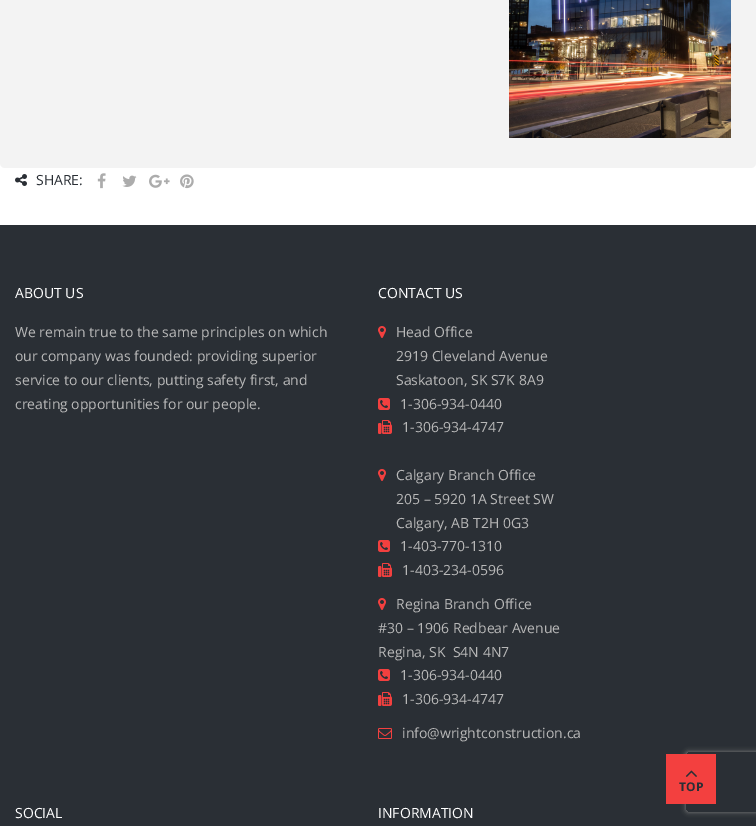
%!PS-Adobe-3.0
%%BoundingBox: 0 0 756 826
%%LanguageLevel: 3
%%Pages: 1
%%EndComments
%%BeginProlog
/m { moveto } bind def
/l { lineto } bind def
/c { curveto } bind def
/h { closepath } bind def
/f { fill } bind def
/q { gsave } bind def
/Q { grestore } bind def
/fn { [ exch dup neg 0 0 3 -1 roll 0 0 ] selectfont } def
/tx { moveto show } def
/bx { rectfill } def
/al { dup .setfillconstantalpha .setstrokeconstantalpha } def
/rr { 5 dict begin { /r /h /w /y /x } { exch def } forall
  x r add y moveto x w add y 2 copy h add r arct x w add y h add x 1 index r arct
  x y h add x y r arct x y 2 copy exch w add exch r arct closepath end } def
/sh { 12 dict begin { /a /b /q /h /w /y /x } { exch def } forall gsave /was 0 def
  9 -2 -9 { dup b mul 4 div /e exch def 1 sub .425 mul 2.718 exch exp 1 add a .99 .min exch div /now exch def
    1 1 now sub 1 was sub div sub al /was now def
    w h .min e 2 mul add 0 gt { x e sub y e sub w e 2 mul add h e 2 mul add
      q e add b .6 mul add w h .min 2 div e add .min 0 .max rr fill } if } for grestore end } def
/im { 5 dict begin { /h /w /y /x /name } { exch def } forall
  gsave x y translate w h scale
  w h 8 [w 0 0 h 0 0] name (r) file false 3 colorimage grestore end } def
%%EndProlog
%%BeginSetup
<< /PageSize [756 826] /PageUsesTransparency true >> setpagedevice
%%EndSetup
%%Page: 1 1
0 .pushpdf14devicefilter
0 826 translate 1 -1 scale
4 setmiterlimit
1 setgray
0 0 756 826 bx
0.953 setgray
0 -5 756 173 5 rr f
(image0.raw) 509 0 222 138 im
(image1.raw) 15 174 12 12 im
/OpenSans-Regular 14 fn
0.165 0.184 0.208 setrgbcolor
(SHARE:) 36 185 tx
(image2.raw) 97 173 9 16 im
(image3.raw) 122 175 15 12 im
(image4.raw) 149 174 21 14 im
(image5.raw) 180 174 14 15 im
0 225 756 601 bx
1 setgray
(ABOUT US) 15 298 tx
0.722 setgray
(We remain true to the same principles on which) 15 337 tx
(our company was founded: providing superior) 15 361 tx
(service to our clients, putting safety first, and) 15 385 tx
(creating opportunities for our people.) 15 409 tx
1 setgray
(CONTACT US) 378 298 tx
(image6.raw) 378 326 8 12 im
0.722 setgray
(Head Office) 396 337 tx
(2919 Cleveland Avenue) 396 361 tx
(Saskatoon, SK S7K 8A9) 396 385 tx
(image7.raw) 378 398 12 12 im
(1-306-934-0440) 400 409 tx
(image8.raw) 378 420 14 14 im
(1-306-934-4747) 402 432 tx
(image6.raw) 378 469 8 12 im
(Calgary Branch Office) 396 480 tx
(205 – 5920 1A Street SW) 396 504 tx
(Calgary, AB T2H 0G3) 396 528 tx
(image7.raw) 378 540 12 12 im
(1-403-770-1310) 400 551 tx
(image8.raw) 378 563 14 14 im
(1-403-234-0596) 402 575 tx
(image6.raw) 378 598 8 12 im
(Regina Branch Office) 396 609 tx
(#30 – 1906 Redbear Avenue) 378 633 tx
(Regina, SK  S4N 4N7) 378 657 tx
(image7.raw) 378 669 12 12 im
(1-306-934-0440) 400 680 tx
(image8.raw) 378 692 14 14 im
(1-306-934-4747) 402 704 tx
(image9.raw) 378 728 14 11 im
(info@wrightconstruction.ca) 402 738 tx
1 setgray
(SOCIAL) 15 818 tx
(INFORMATION) 378 818 tx
q
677 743 m 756 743 l 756 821 l 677 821 l h 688 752 m 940 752 l 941 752 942 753 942 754 c 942 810 l 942 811 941 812 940 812 c 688 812 l 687 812 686 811 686 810 c 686 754 l 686 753 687 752 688 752 c h eoclip newpath
0.502 setgray
686 752 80 60 2 2.5 1 sh
Q
0.953 0.251 0.247 setrgbcolor
666 754 50 50 bx
(image10.raw) 685 770 12 7 im
/OpenSans-Bold 12 fn
0.165 0.184 0.208 setrgbcolor
(TOP) 679 791 tx
.poppdf14devicefilter showpage
%%EOF
